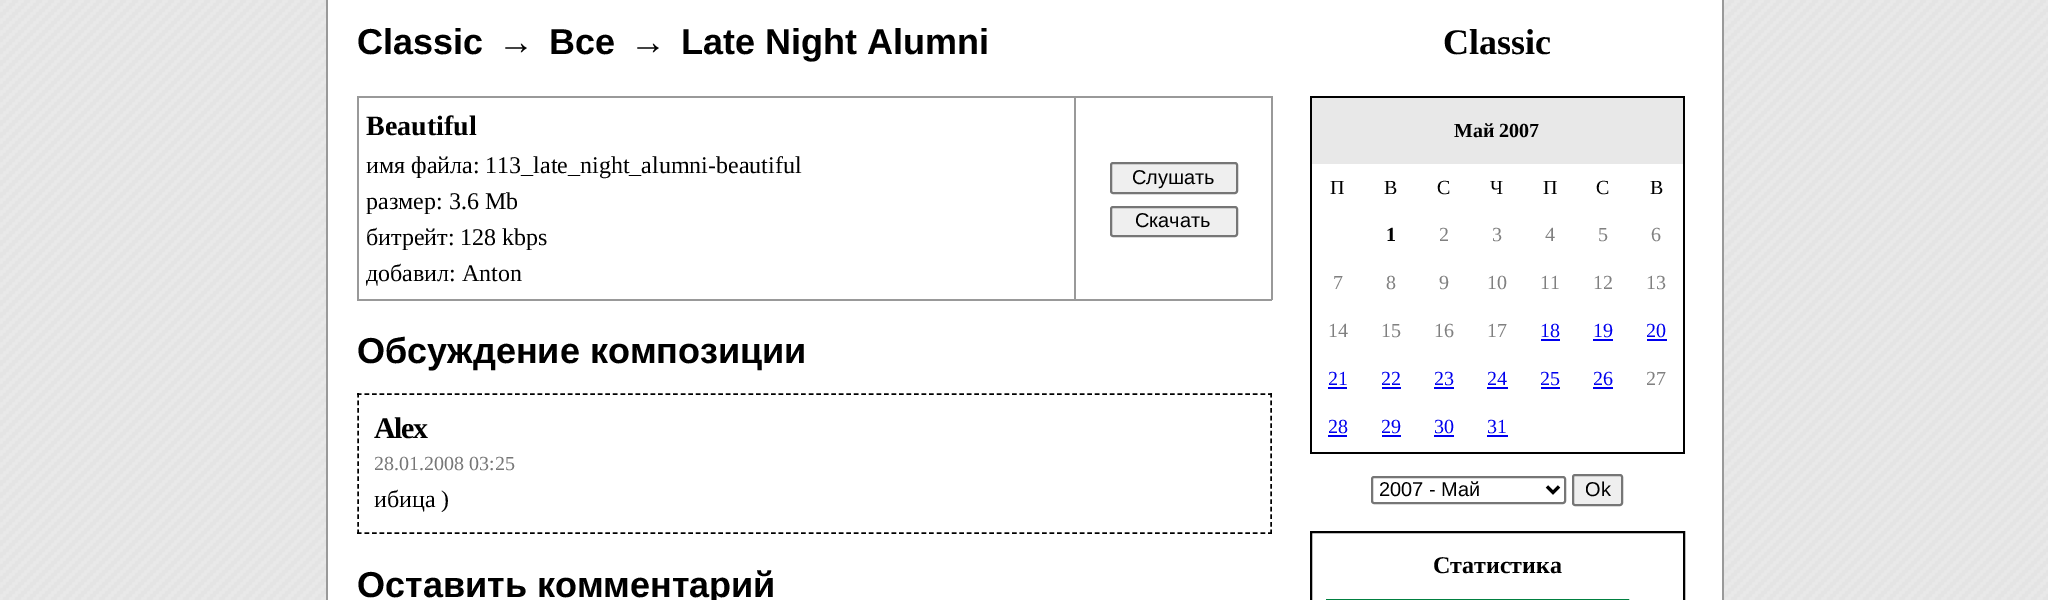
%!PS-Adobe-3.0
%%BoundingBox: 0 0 2048 600
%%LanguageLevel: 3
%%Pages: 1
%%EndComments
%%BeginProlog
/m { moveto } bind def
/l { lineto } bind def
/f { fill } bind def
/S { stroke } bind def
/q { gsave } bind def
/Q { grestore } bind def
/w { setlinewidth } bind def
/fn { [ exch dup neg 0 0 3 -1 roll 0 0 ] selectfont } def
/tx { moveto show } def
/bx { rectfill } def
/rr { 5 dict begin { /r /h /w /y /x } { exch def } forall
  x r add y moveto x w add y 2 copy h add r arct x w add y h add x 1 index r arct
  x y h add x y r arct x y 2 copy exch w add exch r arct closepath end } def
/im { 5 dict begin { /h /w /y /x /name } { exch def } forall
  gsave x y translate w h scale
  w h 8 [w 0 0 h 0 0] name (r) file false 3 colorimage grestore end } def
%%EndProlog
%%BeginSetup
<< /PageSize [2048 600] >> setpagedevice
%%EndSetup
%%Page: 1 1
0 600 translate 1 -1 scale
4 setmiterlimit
1 setgray
0 0 2048 600 bx
(image0.raw) 0 0 2048 600 im
328 0 1394 600 bx
0.6 setgray
1722 0 2 600 bx
326 0 2 600 bx
/LiberationSans-Bold 36 fn
0 setgray
(Classic) 357 54 tx
/LiberationSans-Regular 36 fn
(→) 498 54 tx
/LiberationSans-Bold 36 fn
(Все) 549 54 tx
/LiberationSans-Regular 36 fn
(→) 630 54 tx
/LiberationSans-Bold 36 fn
(Late Night Alumni) 681 54 tx
0.6 setgray
1074 96 198 2 bx
1271 96 2 204 bx
1074 299 198 2 bx
1074 96 2 204 bx
357 96 719 2 bx
357 299 719 2 bx
357 96 2 204 bx
/LiberationSerif-Bold 28 fn
0 setgray
(Beautiful) 366 135 tx
/LiberationSerif-Regular 24 fn
(имя файла: 113_late_night_alumni-beautiful) 366 173 tx
(размер: 3.6 Mb) 366 209 tx
(битрейт: 128 kbps) 366 245 tx
(добавил: Anton) 366 281 tx
0.937 setgray
1111 163 126 30 2 rr q f Q
0.463 setgray
2 w
S
/LiberationSans-Regular 20 fn
0 setgray
(Слушать) 1132 184 tx
0.937 setgray
1111 207 126 29 2 rr q f Q
0.463 setgray
S
0 setgray
(Скачать) 1135 227 tx
/LiberationSans-Bold 36 fn
(Обсуждение композиции) 357 363 tx
1.5 w
[4.5 3.03] 0 setdash
357 394 m 1272 394 l S
[4.5 3.09] 0 setdash
1271 393 m 1271 534 l S
[4.5 3.03] 0 setdash
357 533 m 1272 533 l S
[4.5 3.09] 0 setdash
358 393 m 358 534 l S
/LiberationSerif-Bold 30 fn
374 438 m -1.5 0 (Alex) ashow
/LiberationSerif-Regular 20 fn
0.467 setgray
(28.01.2008 03:25) 374 470 tx
/LiberationSerif-Regular 24 fn
0 setgray
(ибица \)) 374 507 tx
/LiberationSans-Bold 36 fn
(Оставить комментарий) 357 597 tx
/LiberationSerif-Bold 36 fn
(Classic) 1443 54 tx
1310 96 375 2 bx
1683 96 2 357 bx
1310 452 375 2 bx
1310 96 2 357 bx
0.91 setgray
1312 98 371 66 bx
/LiberationSerif-Bold 20 fn
0 setgray
(Май 2007) 1454 137 tx
/LiberationSerif-Regular 20 fn
(П) 1330 194 tx
(В) 1384 194 tx
(С) 1437 194 tx
(Ч) 1490 194 tx
(П) 1543 194 tx
(С) 1596 194 tx
(В) 1650 194 tx
/LiberationSerif-Bold 20 fn
(1) 1386 241 tx
/LiberationSerif-Regular 20 fn
0.502 setgray
(2) 1439 241 tx
(3) 1492 241 tx
(4) 1545 241 tx
(5) 1598 241 tx
(6) 1651 241 tx
(7) 1333 289 tx
(8) 1386 289 tx
(9) 1439 289 tx
(10) 1487 289 tx
(11) 1540 289 tx
(12) 1593 289 tx
(13) 1646 289 tx
(14) 1328 337 tx
(15) 1381 337 tx
(16) 1434 337 tx
(17) 1487 337 tx
0 0 0.933 setrgbcolor
(18) 1540 337 tx
1541 339 19 2 bx
(19) 1593 337 tx
1593 339 20 2 bx
(20) 1646 337 tx
1647 339 20 2 bx
(21) 1328 385 tx
1328 387 19 2 bx
(22) 1381 385 tx
1382 387 19 2 bx
(23) 1434 385 tx
1434 387 20 2 bx
(24) 1487 385 tx
1487 387 21 2 bx
(25) 1540 385 tx
1541 387 19 2 bx
(26) 1593 385 tx
1593 387 20 2 bx
0.502 setgray
(27) 1646 385 tx
0 0 0.933 setrgbcolor
(28) 1328 433 tx
1328 435 19 2 bx
(29) 1381 433 tx
1382 435 19 2 bx
(30) 1434 433 tx
1434 435 20 2 bx
(31) 1487 433 tx
1487 435 21 2 bx
0.463 setgray
2 w
[] 0 setdash
1372 477 193 26 2 rr S
0 setgray
3 w
1547 486.5 m 1553 492.5 l 1559 486.5 l S
/LiberationSans-Regular 20 fn
(2007 - Май) 1379 496 tx
0.937 setgray
1573 475 49 30 2 rr q f Q
0.463 setgray
2 w
S
0 setgray
(Ok) 1585 496 tx
1311 532 373 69 rectstroke
/LiberationSerif-Bold 24 fn
(Статистика) 1433 573 tx
0 0.502 0.251 setrgbcolor
1327 600 301 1 rectstroke
showpage
%%EOF
